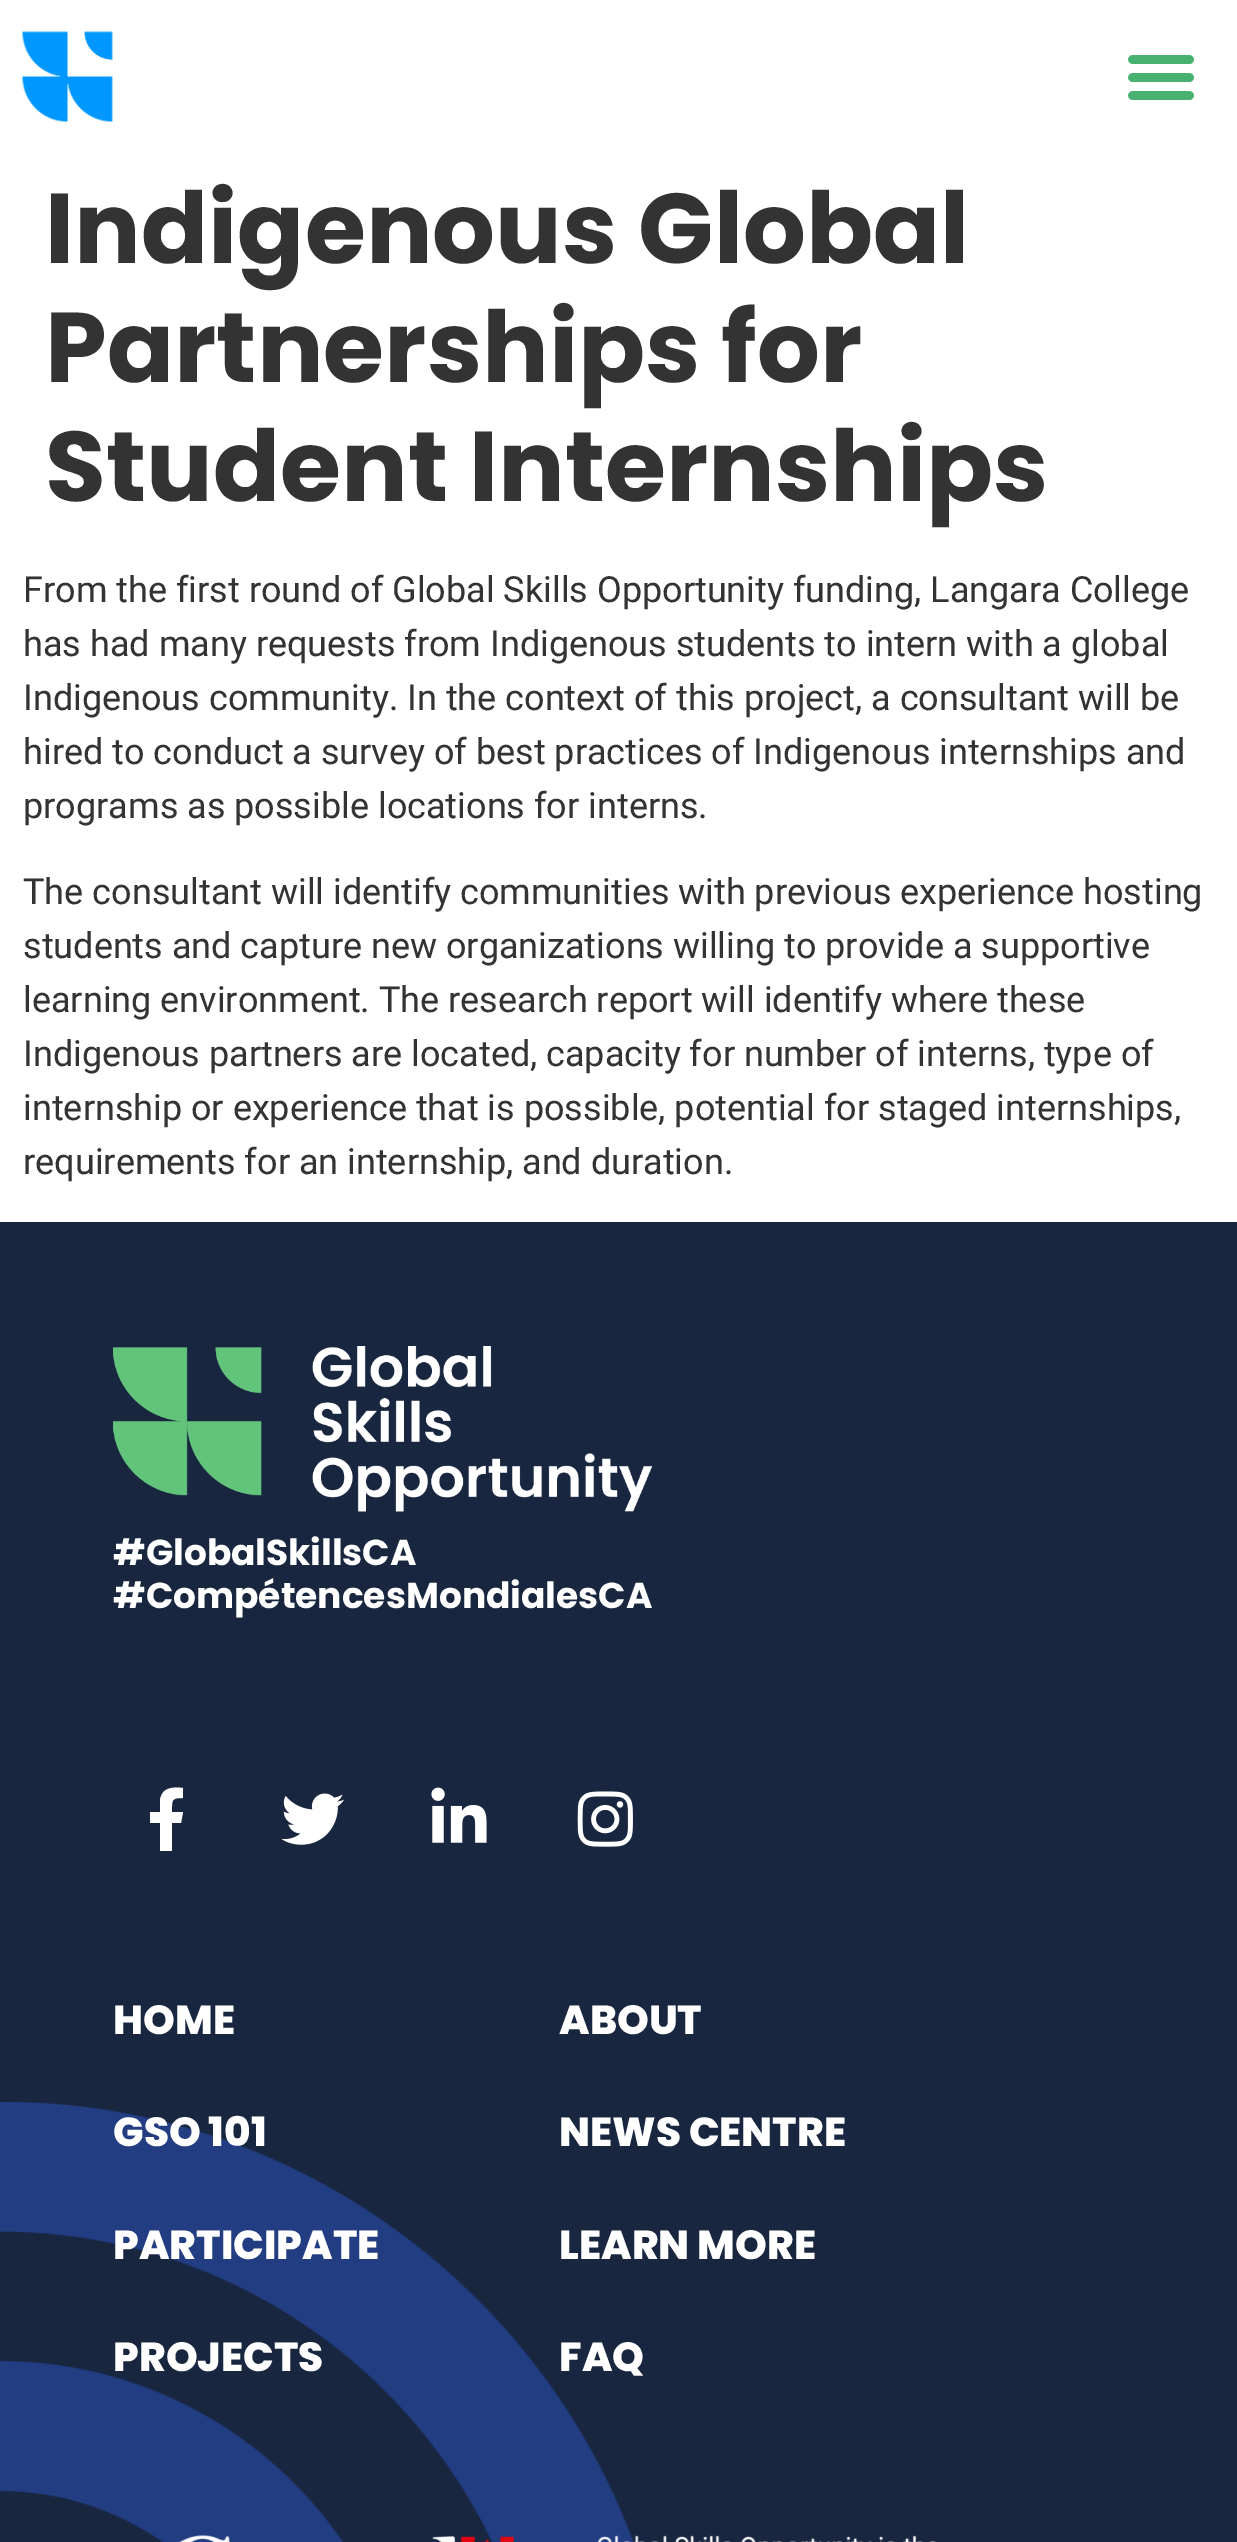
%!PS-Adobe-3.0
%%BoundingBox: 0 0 1237 2542
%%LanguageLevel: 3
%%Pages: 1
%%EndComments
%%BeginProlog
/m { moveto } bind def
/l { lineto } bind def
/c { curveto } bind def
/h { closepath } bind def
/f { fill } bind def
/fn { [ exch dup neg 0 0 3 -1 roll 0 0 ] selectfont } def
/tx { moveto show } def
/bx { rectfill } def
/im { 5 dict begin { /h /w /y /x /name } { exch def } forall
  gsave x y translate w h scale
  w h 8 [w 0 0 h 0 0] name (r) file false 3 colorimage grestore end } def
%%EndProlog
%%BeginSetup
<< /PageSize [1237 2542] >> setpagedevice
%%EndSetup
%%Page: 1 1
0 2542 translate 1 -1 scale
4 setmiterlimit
1 setgray
0 0 1237 2542 bx
(image0.raw) 22 31 91 91 im
(image1.raw) 1128 55 66 45 im
/Poppins-Bold 99 fn
0.2 setgray
(Indigenous Global) 45 263 tx
(Partnerships for) 45 382 tx
(Student Internships) 45 501 tx
/Roboto-Regular 36 fn
(From the first round of Global Skills Opportunity funding, Langara College) 23 602 tx
(has had many requests from Indigenous students to intern with a global) 23 656 tx
(Indigenous community. In the context of this project, a consultant will be) 23 710 tx
(hired to conduct a survey of best practices of Indigenous internships and) 23 764 tx
(programs as possible locations for interns.) 23 818 tx
(The consultant will identify communities with previous experience hosting) 23 904 tx
(students and capture new organizations willing to provide a supportive) 23 958 tx
(learning environment. The research report will identify where these) 23 1012 tx
(Indigenous partners are located, capacity for number of interns, type of) 23 1066 tx
(internship or experience that is possible, potential for staged internships,) 23 1120 tx
(requirements for an internship, and duration.) 23 1174 tx
0.094 0.149 0.251 setrgbcolor
0 1222 1237 1320 bx
(image2.raw) 113 1346 540 166 im
/Poppins-Bold 36 fn
1 setgray
(#GlobalSkillsCA) 113 1565 tx
(#CompétencesMondialesCA) 113 1608 tx
181 1823 m 172 1823 l 172 1851 l 160 1851 l 160 1823 l 150 1823 l 150 1812 l 160 1812 l 160 1800 l 162 1787 173 1787 183 1788 c 183 1798 l 171 1798 172 1800 172 1812 c 183 1812 l h f
(image3.raw) 281 1793 64 52 im
(image4.raw) 431 1787 56 56 im
(image5.raw) 577 1791 56 56 im
/Poppins-ExtraBold 40.5 fn
(HOME) 113 2034 tx
(image7.raw) 0 2102 634 440 im
(GSO 101) 113 2146 tx
(PARTICIPATE) 113 2259 tx
(PROJECTS) 113 2371 tx
(ABOUT) 559 2034 tx
(NEWS CENTRE) 559 2146 tx
(LEARN MORE) 559 2259 tx
(FAQ) 559 2371 tx
(image6.raw) 179 2535 757 7 im
showpage
%%EOF
